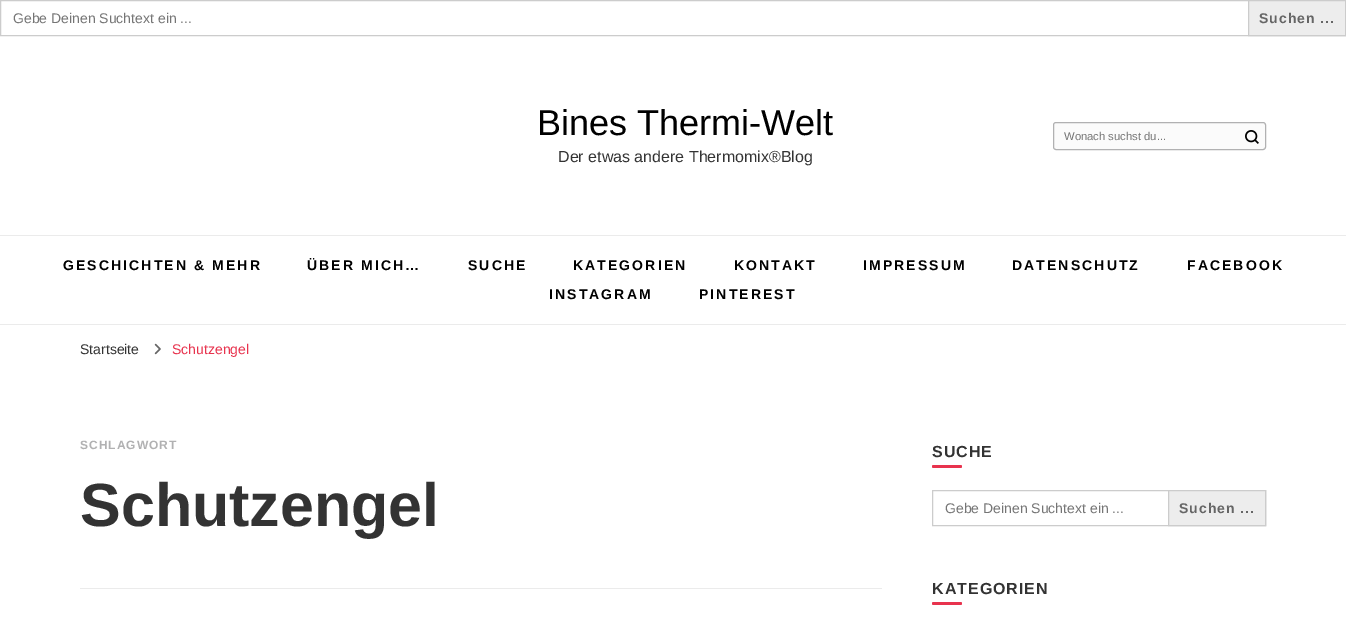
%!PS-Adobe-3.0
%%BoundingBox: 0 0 1346 619
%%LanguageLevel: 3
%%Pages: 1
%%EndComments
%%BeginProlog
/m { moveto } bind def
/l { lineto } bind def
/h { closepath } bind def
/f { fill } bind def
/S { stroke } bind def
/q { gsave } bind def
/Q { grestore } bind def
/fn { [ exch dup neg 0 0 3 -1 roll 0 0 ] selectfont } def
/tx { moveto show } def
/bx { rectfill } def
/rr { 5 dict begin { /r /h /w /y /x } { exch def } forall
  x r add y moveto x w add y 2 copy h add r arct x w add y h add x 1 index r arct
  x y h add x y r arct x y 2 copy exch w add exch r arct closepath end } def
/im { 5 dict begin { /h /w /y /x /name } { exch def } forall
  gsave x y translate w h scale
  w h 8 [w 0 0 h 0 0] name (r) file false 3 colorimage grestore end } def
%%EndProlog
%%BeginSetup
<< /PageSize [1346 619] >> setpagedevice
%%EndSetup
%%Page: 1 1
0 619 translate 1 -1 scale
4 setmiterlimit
1 setgray
0 0 1346 619 bx
0.8 setgray
0.5 0.5 1345 35 rectstroke
/LiberationSans-Regular 14 fn
0.459 setgray
(Gebe Deinen Suchtext ein ...) 13 23 tx
0.929 setgray
1248.5 0.5 m 1345.5 0.5 l 1345.5 35.5 l 1248.5 35.5 l h q f Q
0.8 setgray
S
/LiberationSans-Bold 14 fn
0.4 setgray
1259 23 m 1 0 (Suchen ...) ashow
0.922 setgray
0 324 1346 1 bx
/LiberationSans-Regular 36 fn
0 setgray
(Bines Thermi-Welt) 537 135 tx
/LiberationSans-Regular 16 fn
0.2 setgray
(Der etwas andere Thermomix®Blog) 558 162 tx
0.984 setgray
1053.5 122.5 212 27 2.5 rr q f Q
0.694 0.694 0.698 setrgbcolor
S
/LiberationSans-Regular 11.25 fn
0.459 setgray
(Wonach suchst du...) 1064 140 tx
(image0.raw) 1245 130 14 14 im
0.922 setgray
0 235 1346 1 bx
/LiberationSans-Bold 14 fn
0 setgray
63 270 m 2.1 0 (GESCHICHTEN & MEHR) ashow
307 270 m 2.1 0 (ÜBER MICH…) ashow
468 270 m 2.1 0 (SUCHE) ashow
573 270 m 2.1 0 (KATEGORIEN) ashow
734 270 m 2.1 0 (KONTAKT) ashow
863 270 m 2.1 0 (IMPRESSUM) ashow
1012 270 m 2.1 0 (DATENSCHUTZ) ashow
1187 270 m 2.1 0 (FACEBOOK) ashow
549 299 m 2.1 0 (INSTAGRAM) ashow
699 299 m 2.1 0 (PINTEREST) ashow
/LiberationSans-Regular 14 fn
0.2 setgray
(Startseite) 80 354 tx
(image1.raw) 154 343 7 12 im
0.91 0.2 0.306 setrgbcolor
(Schutzengel) 172 354 tx
0.922 setgray
80 588 802 1 bx
/LiberationSans-Bold 12 fn
0.694 0.694 0.698 setrgbcolor
80 449 m 1 0 (SCHLAGWORT) ashow
/LiberationSans-Bold 61 fn
0.2 setgray
(Schutzengel) 80 526 tx
/LiberationSans-Bold 16 fn
932 457 m 1 0 (SUCHE) ashow
0.91 0.2 0.306 setrgbcolor
932 465 30 3 1.5 rr f
0.8 setgray
932.5 490.5 333 35 rectstroke
/LiberationSans-Regular 14 fn
0.459 setgray
(Gebe Deinen Suchtext ein ...) 945 513 tx
0.929 setgray
1168.5 490.5 m 1265.5 490.5 l 1265.5 525.5 l 1168.5 525.5 l h q f Q
0.8 setgray
S
/LiberationSans-Bold 14 fn
0.4 setgray
1179 513 m 1 0 (Suchen ...) ashow
/LiberationSans-Bold 16 fn
0.2 setgray
932 594 m 1 0 (KATEGORIEN) ashow
0.91 0.2 0.306 setrgbcolor
932 602 30 3 1.5 rr f
showpage
%%EOF
